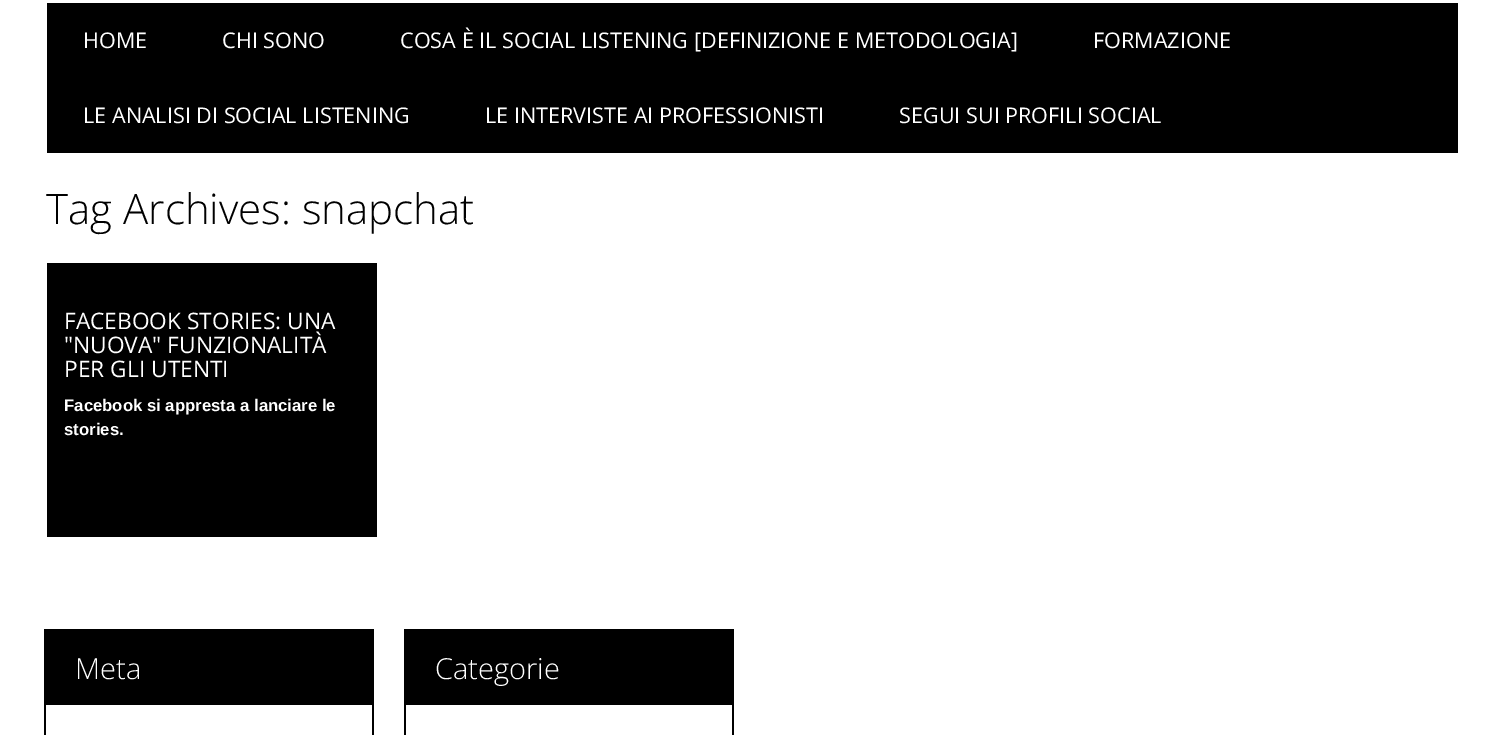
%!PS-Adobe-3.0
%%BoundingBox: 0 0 1504 735
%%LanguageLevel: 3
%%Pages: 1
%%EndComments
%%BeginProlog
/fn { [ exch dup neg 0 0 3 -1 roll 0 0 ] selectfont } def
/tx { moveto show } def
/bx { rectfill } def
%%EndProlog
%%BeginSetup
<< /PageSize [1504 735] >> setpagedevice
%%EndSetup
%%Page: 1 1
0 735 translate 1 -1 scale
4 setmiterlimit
1 setgray
0 0 1504 735 bx
0 setgray
47 3 1411 150 bx
/OpenSans-Regular 21.6 fn
1 setgray
(HOME) 83 48 tx
(CHI SONO) 222 48 tx
(COSA È IL SOCIAL LISTENING [DEFINIZIONE E METODOLOGIA]) 400 48 tx
(FORMAZIONE) 1093 48 tx
(LE ANALISI DI SOCIAL LISTENING) 83 123 tx
(LE INTERVISTE AI PROFESSIONISTI) 485 123 tx
(SEGUI SUI PROFILI SOCIAL) 899 123 tx
/OpenSans-Light 42 fn
0 setgray
(Tag Archives: snapchat) 46 224 tx
47 263 330 274 bx
/OpenSans-Regular 22.75 fn
1 setgray
(FACEBOOK STORIES: UNA) 64 329 tx
("NUOVA" FUNZIONALITÀ) 64 353 tx
(PER GLI UTENTI) 64 377 tx
/LiberationSans-Bold 16.75 fn
(Facebook si appresta a lanciare le) 64 411 tx
(stories.) 64 435 tx
0 setgray
44 629 330 4 bx
372 629 2 106 bx
44 629 2 106 bx
46 633 326 72 bx
/OpenSans-Light 29 fn
1 setgray
(Meta) 75 679 tx
0 setgray
404 629 330 4 bx
732 629 2 106 bx
404 629 2 106 bx
406 633 326 72 bx
1 setgray
(Categorie) 435 679 tx
showpage
%%EOF
